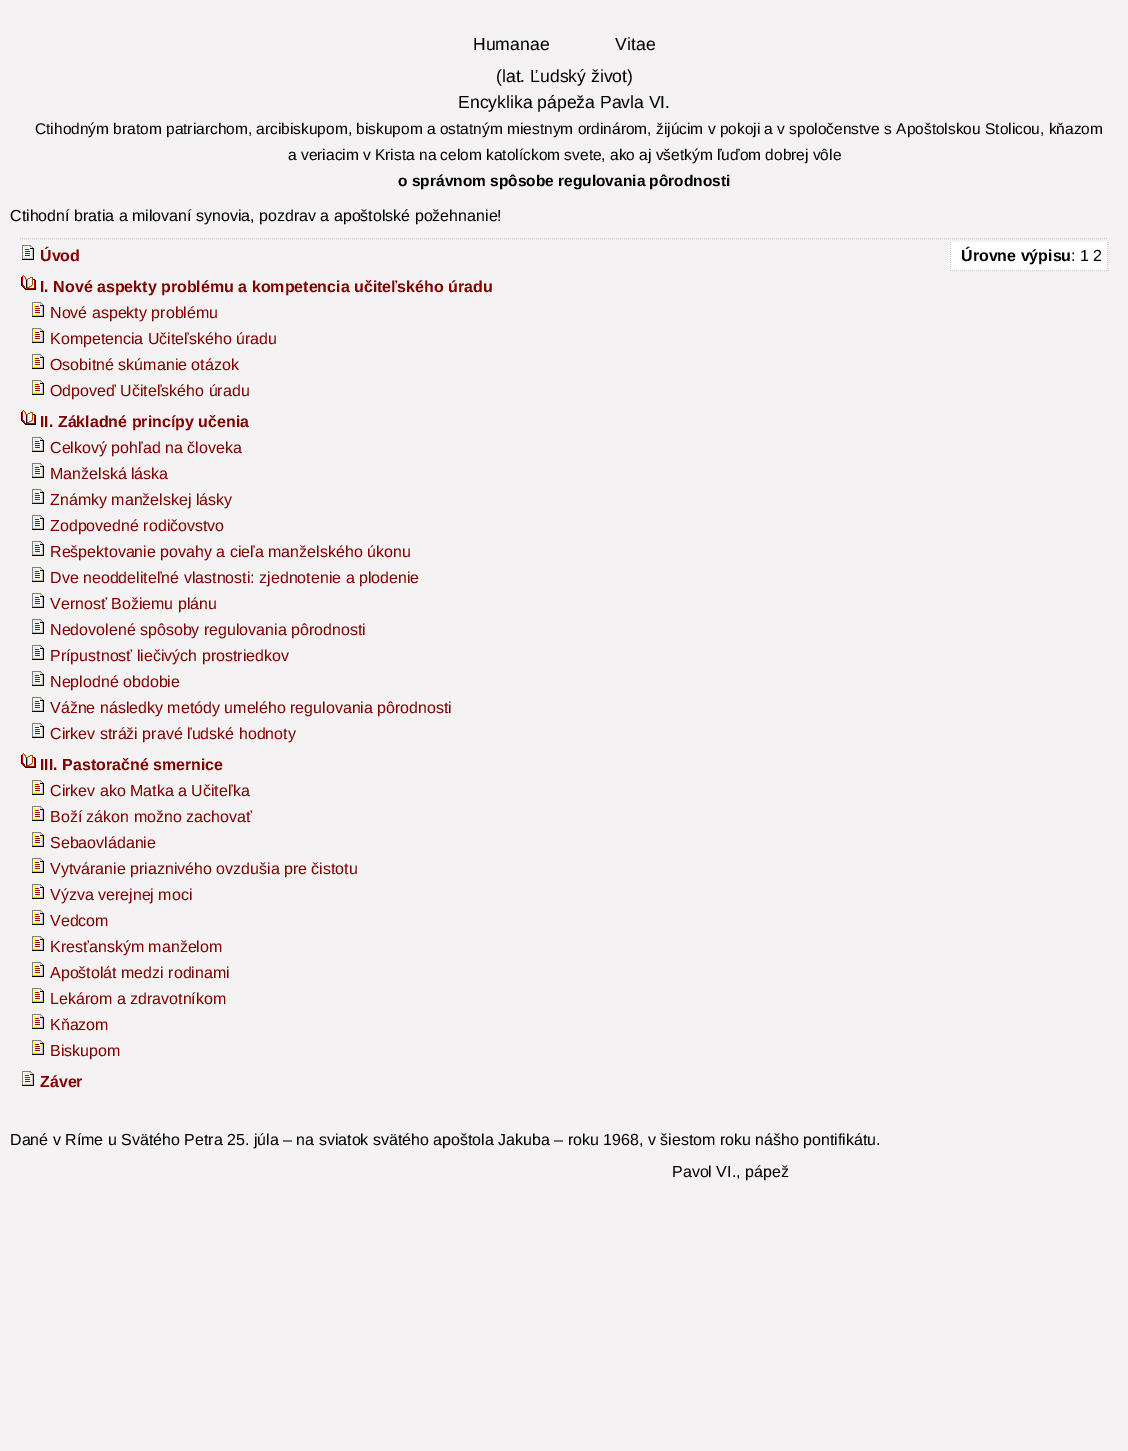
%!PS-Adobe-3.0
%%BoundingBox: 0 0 1128 1451
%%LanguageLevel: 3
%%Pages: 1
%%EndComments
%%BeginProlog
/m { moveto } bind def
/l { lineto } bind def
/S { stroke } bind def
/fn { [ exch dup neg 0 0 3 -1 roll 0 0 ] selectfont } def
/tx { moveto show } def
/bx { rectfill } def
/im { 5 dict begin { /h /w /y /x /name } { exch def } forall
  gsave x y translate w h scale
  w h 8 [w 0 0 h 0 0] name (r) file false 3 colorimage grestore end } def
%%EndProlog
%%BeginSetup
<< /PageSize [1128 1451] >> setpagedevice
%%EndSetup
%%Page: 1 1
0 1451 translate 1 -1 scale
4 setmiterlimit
0.957 0.949 0.953 setrgbcolor
0 0 1128 1451 bx
/LiberationSans-Regular 17.6 fn
0 setgray
473 50 m 61 0 32 (Humanae Vitae) widthshow
(\(lat. Ľudský život\)) 496 82 tx
(Encyklika pápeža Pavla VI.) 458 108 tx
/LiberationSans-Regular 15.5 fn
(Ctihodným bratom patriarchom, arcibiskupom, biskupom a ostatným miestnym ordinárom, žijúcim v pokoji a v spoločenstve s Apoštolskou Stolicou, kňazom) 35 134 tx
(a veriacim v Krista na celom katolíckom svete, ako aj všetkým ľuďom dobrej vôle) 288 160 tx
/LiberationSans-Bold 15.5 fn
(o správnom spôsobe regulovania pôrodnosti) 398 186 tx
/LiberationSans-Regular 16 fn
(Ctihodní bratia a milovaní synovia, pozdrav a apoštolské požehnanie!) 10 221 tx
0.8 setgray
[1 1] 0 setdash
20 238.5 m 1108 238.5 l S
(image0.raw) 22 245 12 15 im
/LiberationSans-Bold 16 fn
0.502 0 0 setrgbcolor
(Úvod) 40 261 tx
1 setgray
950 242 158 29 bx
0.8 setgray
1107.5 242 m 1107.5 271 l S
950 270.5 m 1108 270.5 l S
950.5 242 m 950.5 271 l S
0 setgray
(Úrovne výpisu) 961 261 tx
/LiberationSans-Regular 16 fn
(: 1 2) 1071 261 tx
(image1.raw) 21 275 15 15 im
/LiberationSans-Bold 16 fn
0.502 0 0 setrgbcolor
(I. Nové aspekty problému a kompetencia učiteľského úradu) 40 292 tx
(image0.raw) 32 302 12 15 im
/LiberationSans-Regular 16 fn
(Nové aspekty problému) 50 318 tx
(image0.raw) 32 328 12 15 im
(Kompetencia Učiteľského úradu) 50 344 tx
(image0.raw) 32 354 12 15 im
(Osobitné skúmanie otázok) 50 370 tx
(image0.raw) 32 380 12 15 im
(Odpoveď Učiteľského úradu) 50 396 tx
(image1.raw) 21 410 15 15 im
/LiberationSans-Bold 16 fn
(II. Základné princípy učenia) 40 427 tx
(image0.raw) 32 437 12 15 im
/LiberationSans-Regular 16 fn
(Celkový pohľad na človeka) 50 453 tx
(image0.raw) 32 463 12 15 im
(Manželská láska) 50 479 tx
(image0.raw) 32 489 12 15 im
(Známky manželskej lásky) 50 505 tx
(image0.raw) 32 515 12 15 im
(Zodpovedné rodičovstvo) 50 531 tx
(image0.raw) 32 541 12 15 im
(Rešpektovanie povahy a cieľa manželského úkonu) 50 557 tx
(image0.raw) 32 567 12 15 im
(Dve neoddeliteľné vlastnosti: zjednotenie a plodenie) 50 583 tx
(image0.raw) 32 593 12 15 im
(Vernosť Božiemu plánu) 50 609 tx
(image0.raw) 32 619 12 15 im
(Nedovolené spôsoby regulovania pôrodnosti) 50 635 tx
(image0.raw) 32 645 12 15 im
(Prípustnosť liečivých prostriedkov) 50 661 tx
(image0.raw) 32 671 12 15 im
(Neplodné obdobie) 50 687 tx
(image0.raw) 32 697 12 15 im
(Vážne následky metódy umelého regulovania pôrodnosti) 50 713 tx
(image0.raw) 32 723 12 15 im
(Cirkev stráži pravé ľudské hodnoty) 50 739 tx
(image1.raw) 21 753 15 15 im
/LiberationSans-Bold 16 fn
(III. Pastoračné smernice) 40 770 tx
(image0.raw) 32 780 12 15 im
/LiberationSans-Regular 16 fn
(Cirkev ako Matka a Učiteľka) 50 796 tx
(image0.raw) 32 806 12 15 im
(Boží zákon možno zachovať) 50 822 tx
(image0.raw) 32 832 12 15 im
(Sebaovládanie) 50 848 tx
(image0.raw) 32 858 12 15 im
(Vytváranie priaznivého ovzdušia pre čistotu) 50 874 tx
(image0.raw) 32 884 12 15 im
(Výzva verejnej moci) 50 900 tx
(image0.raw) 32 910 12 15 im
(Vedcom) 50 926 tx
(image0.raw) 32 936 12 15 im
(Kresťanským manželom) 50 952 tx
(image0.raw) 32 962 12 15 im
(Apoštolát medzi rodinami) 50 978 tx
(image0.raw) 32 988 12 15 im
(Lekárom a zdravotníkom) 50 1004 tx
(image0.raw) 32 1014 12 15 im
(Kňazom) 50 1030 tx
(image0.raw) 32 1040 12 15 im
(Biskupom) 50 1056 tx
(image0.raw) 22 1071 12 15 im
/LiberationSans-Bold 16 fn
(Záver) 40 1087 tx
/LiberationSans-Regular 16 fn
0 setgray
(Dané v Ríme u Svätého Petra 25. júla – na sviatok svätého apoštola Jakuba – roku 1968, v šiestom roku nášho pontifikátu.) 10 1145 tx
(Pavol VI., pápež) 672 1177 tx
showpage
%%EOF
